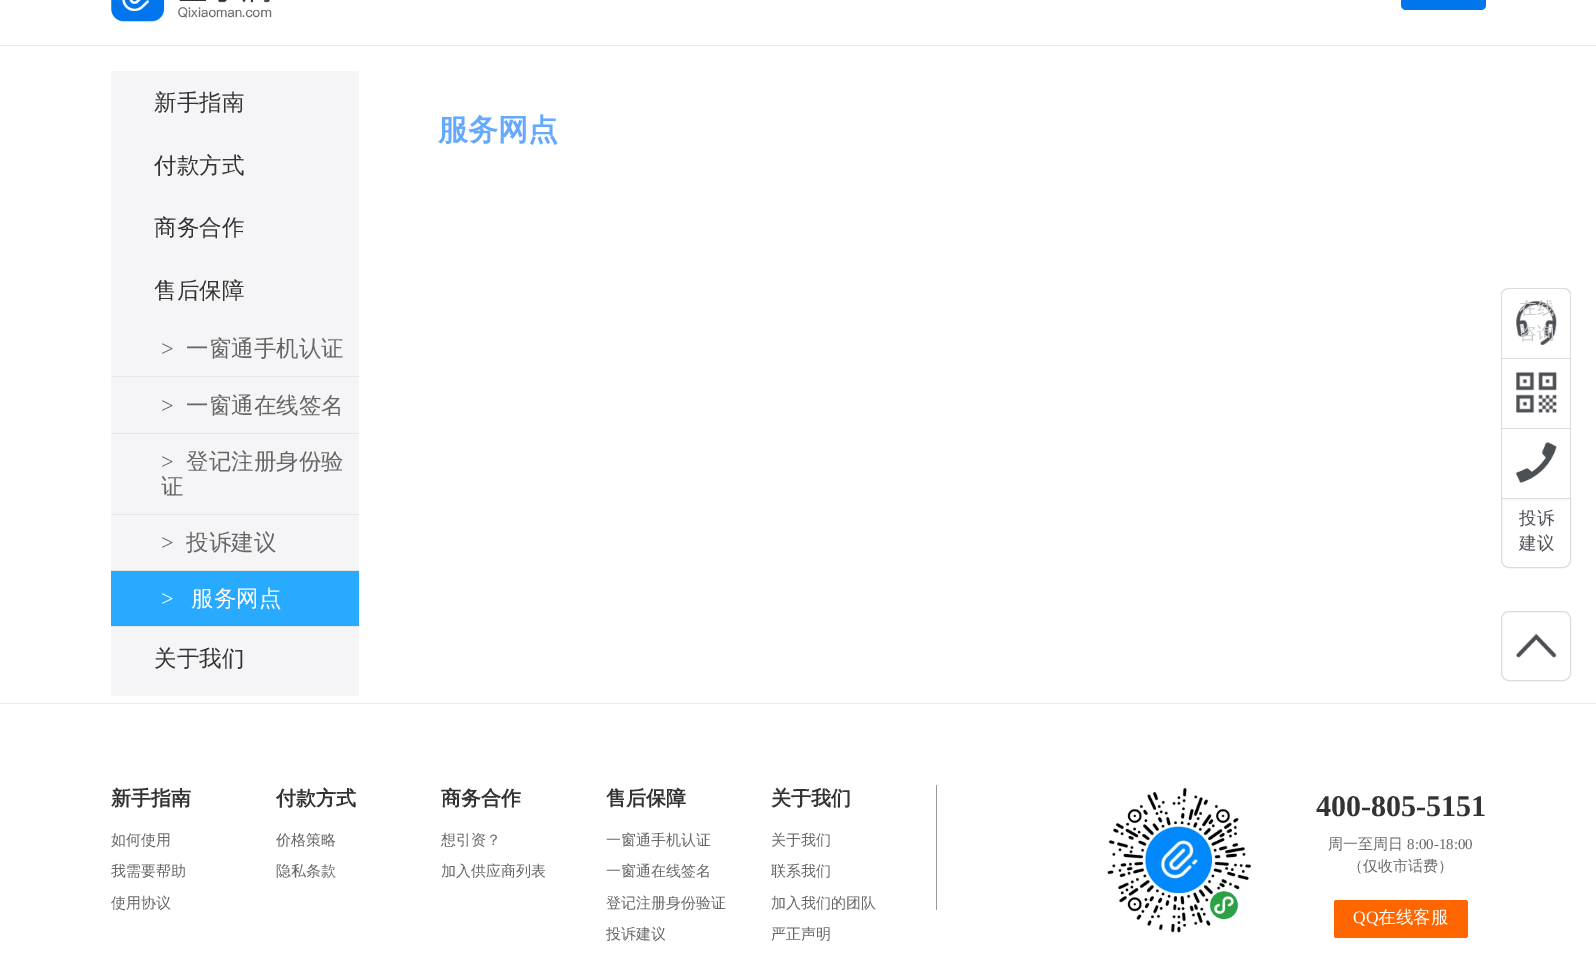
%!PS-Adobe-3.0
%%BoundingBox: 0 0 1596 956
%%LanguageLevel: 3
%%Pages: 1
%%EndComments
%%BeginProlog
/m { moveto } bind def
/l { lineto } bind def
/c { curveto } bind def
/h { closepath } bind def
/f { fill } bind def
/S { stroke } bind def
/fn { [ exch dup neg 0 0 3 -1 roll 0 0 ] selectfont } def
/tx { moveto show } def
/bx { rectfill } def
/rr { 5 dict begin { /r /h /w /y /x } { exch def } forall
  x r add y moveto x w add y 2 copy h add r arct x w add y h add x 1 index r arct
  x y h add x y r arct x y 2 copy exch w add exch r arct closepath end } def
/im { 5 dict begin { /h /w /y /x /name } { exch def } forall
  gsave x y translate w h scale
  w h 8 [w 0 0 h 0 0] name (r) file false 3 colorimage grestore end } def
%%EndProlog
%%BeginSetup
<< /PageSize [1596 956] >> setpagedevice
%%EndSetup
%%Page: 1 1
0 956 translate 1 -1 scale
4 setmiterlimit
1 setgray
0 0 1596 956 bx
0.918 setgray
0 45 1596 1 bx
(image0.raw) 111 0 161 22 im
0 0.459 0.925 setrgbcolor
1401 -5 85 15 5 rr f
0.961 0.961 0.969 setrgbcolor
111 71 248 625 bx
/WenQuanYiZenHei-Medium 22.5 fn
0.2 setgray
(新手指南) 154 110 tx
(付款方式) 154 173 tx
(商务合作) 154 235 tx
(售后保障) 154 298 tx
0.906 setgray
111 376 248 1 bx
/LiberationSerif-Regular 22.5 fn
0.4 setgray
(>) 161 356 tx
/WenQuanYiZenHei-Medium 22.5 fn
(一窗通手机认证) 186 356 tx
0.906 setgray
111 433 248 1 bx
/LiberationSerif-Regular 22.5 fn
0.4 setgray
(>) 161 413 tx
/WenQuanYiZenHei-Medium 22.5 fn
(一窗通在线签名) 186 413 tx
0.906 setgray
111 514 248 1 bx
/LiberationSerif-Regular 22.5 fn
0.4 setgray
(>) 161 469 tx
/WenQuanYiZenHei-Medium 22.5 fn
(登记注册身份验) 186 469 tx
(证) 161 494 tx
0.906 setgray
111 570 248 1 bx
/LiberationSerif-Regular 22.5 fn
0.4 setgray
(>) 161 550 tx
/WenQuanYiZenHei-Medium 22.5 fn
(投诉建议) 186 550 tx
0.906 setgray
111 626 248 1 bx
0.157 0.667 1 setrgbcolor
111 571 248 55 bx
/LiberationSerif-Regular 22.5 fn
1 setgray
(>) 161 606 tx
/WenQuanYiZenHei-Medium 22.5 fn
(服务网点) 191 606 tx
0.2 setgray
(关于我们) 154 666 tx
/WenQuanYiZenHei-Bold 30 fn
0.396 0.663 1 setrgbcolor
(服务网点) 438 140 tx
(image1.raw) 1516 301 41 44 im
0.863 setgray
1509 288 m 1564 288 l 1568 288 1571 291 1571 295 c 1571 358 l 1501 358 l 1501 295 l 1501 291 1505 288 1509 288 c h 1509 289 m 1564 289 l 1567 289 1570 292 1570 295 c 1570 358 l 1502 358 l 1502 295 l 1502 292 1505 289 1509 289 c h eofill
/WenQuanYiZenHei-Medium 17.5 fn
0.788 0.792 0.796 setrgbcolor
(在线) 1519 314 tx
(咨询) 1519 339 tx
(image2.raw) 1516 372 41 41 im
0.863 setgray
1501 358 70 1 bx
1570 358 1 70 bx
1501 358 1 70 bx
(image3.raw) 1516 442 41 41 im
1501 428 70 1 bx
1570 428 1 70 bx
1501 428 1 70 bx
1501.5 498.5 m 1570.5 498.5 l 1570.5 560 l 1570.5 564 1567 567.5 1563 567.5 c 1509 567.5 l 1505 567.5 1501.5 564 1501.5 560 c h S
0.298 0.31 0.329 setrgbcolor
(投诉) 1519 524 tx
(建议) 1519 549 tx
(image4.raw) 1516 633 41 25 im
0.863 setgray
1501.5 611.5 69 69 7.5 rr S
0.918 setgray
0 703 1596 1 bx
/WenQuanYiZenHei-Bold 20 fn
0.2 setgray
(新手指南) 111 805 tx
/WenQuanYiZenHei-Medium 15 fn
0.4 setgray
(如何使用) 111 845 tx
(我需要帮助) 111 876 tx
(使用协议) 111 908 tx
/WenQuanYiZenHei-Bold 20 fn
0.2 setgray
(付款方式) 276 805 tx
/WenQuanYiZenHei-Medium 15 fn
0.4 setgray
(价格策略) 276 845 tx
(隐私条款) 276 876 tx
/WenQuanYiZenHei-Bold 20 fn
0.2 setgray
(商务合作) 441 805 tx
/WenQuanYiZenHei-Medium 15 fn
0.4 setgray
(想引资？) 441 845 tx
(加入供应商列表) 441 876 tx
/WenQuanYiZenHei-Bold 20 fn
0.2 setgray
(售后保障) 606 805 tx
/WenQuanYiZenHei-Medium 15 fn
0.4 setgray
(一窗通手机认证) 606 845 tx
(一窗通在线签名) 606 876 tx
(登记注册身份验证) 606 908 tx
(投诉建议) 606 939 tx
/WenQuanYiZenHei-Bold 20 fn
0.2 setgray
(关于我们) 771 805 tx
/WenQuanYiZenHei-Medium 15 fn
0.4 setgray
(关于我们) 771 845 tx
(联系我们) 771 876 tx
(加入我们的团队) 771 908 tx
(严正声明) 771 939 tx
0.6 setgray
936 785 1 125 bx
(image5.raw) 1107 787 144 146 im
/LiberationSerif-Bold 30 fn
0.2 setgray
(400-805-5151) 1316 816 tx
/WenQuanYiZenHei-Medium 15 fn
0.4 setgray
(周一至周日) 1328 849 tx
/LiberationSerif-Regular 15 fn
(8:00-18:00) 1407 849 tx
/WenQuanYiZenHei-Medium 15 fn
(（仅收市话费）) 1348 871 tx
1 0.4 0 setrgbcolor
1334 900 134 38 2.5 rr f
/LiberationSerif-Regular 17.5 fn
1 setgray
(QQ) 1353 923 tx
/WenQuanYiZenHei-Medium 17.5 fn
(在线客服) 1378 923 tx
showpage
%%EOF
